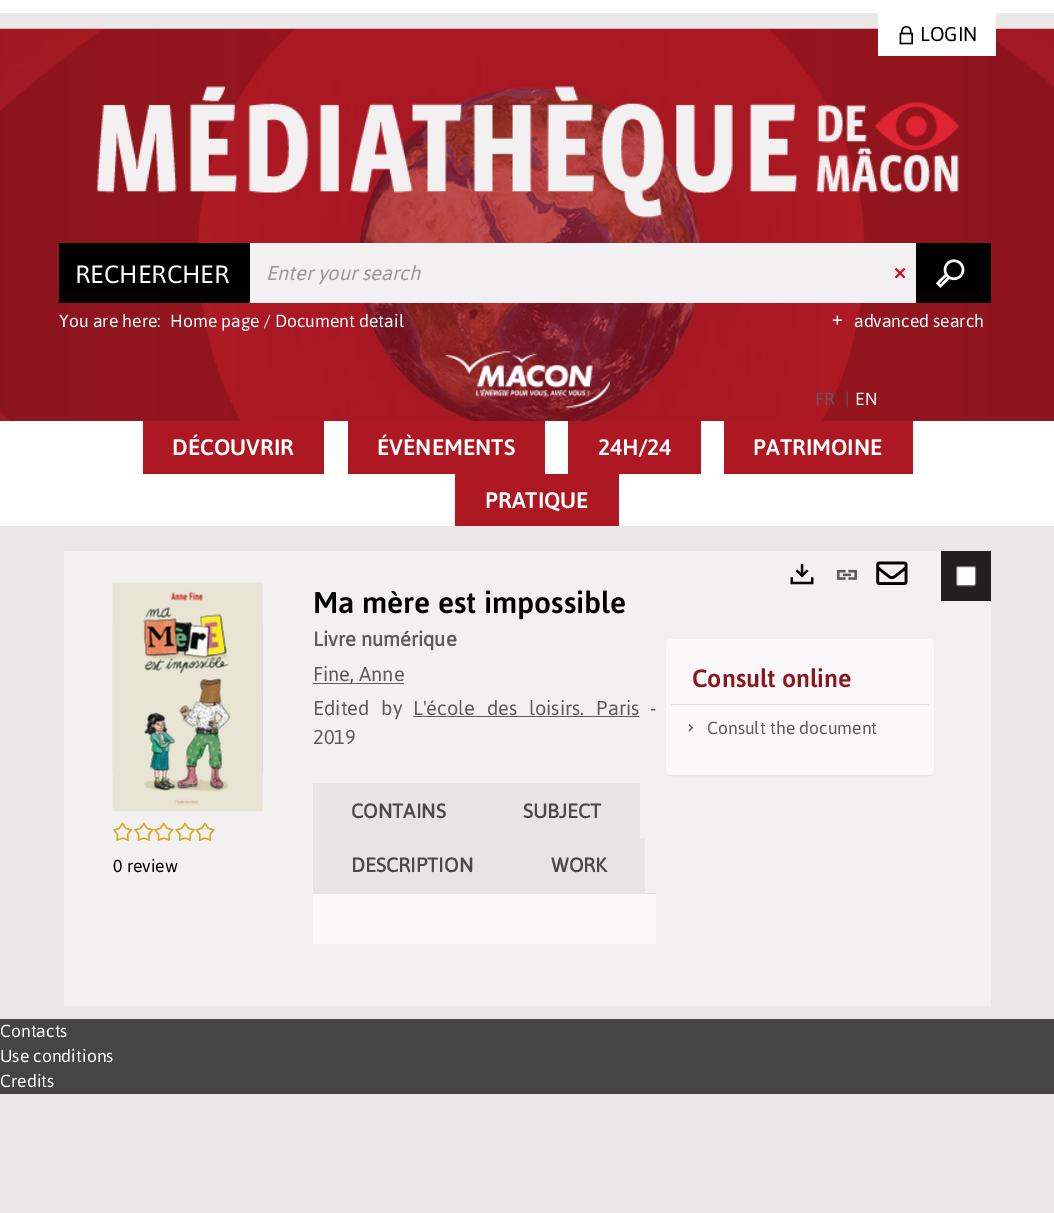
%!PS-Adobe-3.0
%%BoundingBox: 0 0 1054 1213
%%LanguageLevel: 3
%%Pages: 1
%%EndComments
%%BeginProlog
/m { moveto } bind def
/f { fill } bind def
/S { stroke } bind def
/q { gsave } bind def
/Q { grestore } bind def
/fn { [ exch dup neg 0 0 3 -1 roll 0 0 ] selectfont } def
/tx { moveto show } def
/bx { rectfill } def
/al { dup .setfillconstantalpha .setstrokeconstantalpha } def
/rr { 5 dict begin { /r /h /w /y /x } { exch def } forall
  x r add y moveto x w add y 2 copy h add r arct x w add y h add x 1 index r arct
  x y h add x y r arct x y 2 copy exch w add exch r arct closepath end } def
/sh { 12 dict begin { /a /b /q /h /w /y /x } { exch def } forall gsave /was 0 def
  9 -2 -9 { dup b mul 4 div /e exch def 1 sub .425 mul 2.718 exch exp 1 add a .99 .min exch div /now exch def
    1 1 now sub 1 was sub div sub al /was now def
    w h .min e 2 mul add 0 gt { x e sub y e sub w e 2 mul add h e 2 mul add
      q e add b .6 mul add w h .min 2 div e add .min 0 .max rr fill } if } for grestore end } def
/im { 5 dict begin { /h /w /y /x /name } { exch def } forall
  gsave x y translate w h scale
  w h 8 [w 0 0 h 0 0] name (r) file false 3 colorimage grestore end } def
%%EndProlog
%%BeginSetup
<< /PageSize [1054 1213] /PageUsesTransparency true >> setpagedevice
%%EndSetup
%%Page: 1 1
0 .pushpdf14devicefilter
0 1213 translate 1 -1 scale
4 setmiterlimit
0.914 0.906 0.91 setrgbcolor
0 0 1054 1213 bx
(image0.raw) 0 28 1054 393 im
1 setgray
0 0 1054 13 bx
878 13 118 43 bx
(image1.raw) 899 25 14 20 im
/Asap-Regular 20 fn
0 setgray
(LOGIN) 920 41 tx
(image2.raw) 97 86 862 132 im
59 243 191 60 bx
/Asap-Regular 25 fn
1 setgray
(RECHERCHER) 75 283 tx
0.949 0.941 0.945 setrgbcolor
250 243 666 60 bx
/Asap-Italic 20 fn
0.6 setgray
(Enter your search) 266 280 tx
(image3.raw) 894 267 12 12 im
0 setgray
916 243 75 60 bx
(image4.raw) 935 259 30 29 im
(image5.raw) 832 315 10 10 im
/Asap-Regular 17.5 fn
1 setgray
(advanced search) 854 327 tx
(You are here:) 59 327 tx
(Home page / Document detail) 170 327 tx
(image6.raw) 446 351 164 57 im
0.373 0.357 0.357 setrgbcolor
(FR) 815 405 tx
(|) 845 405 tx
0.949 0.941 0.945 setrgbcolor
(EN) 855 405 tx
1 setgray
0 421 1054 105 bx
0.678 0.094 0.133 setrgbcolor
143 421 181 53 bx
/Asap-Medium 22.5 fn
1 setgray
(DÉCOUVRIR) 172 455 tx
0.678 0.094 0.133 setrgbcolor
348 421 197 53 bx
1 setgray
(ÉVÈNEMENTS) 377 455 tx
0.678 0.094 0.133 setrgbcolor
568 421 133 53 bx
1 setgray
(24H/24) 598 455 tx
0.678 0.094 0.133 setrgbcolor
724 421 189 53 bx
1 setgray
(PATRIMOINE) 753 455 tx
0.678 0.094 0.133 setrgbcolor
455 474 164 52 bx
1 setgray
(PRATIQUE) 485 508 tx
0.949 0.941 0.945 setrgbcolor
64 551 927 455 bx
(image7.raw) 112 582 151 230 im
(image8.raw) 112 582 151 230 im
(image9.raw) 113 822 20 20 im
(image10.raw) 133 822 21 20 im
(image11.raw) 153 822 21 20 im
(image12.raw) 175 822 20 20 im
(image12.raw) 195 822 20 20 im
/Asap-Regular 17.5 fn
0 setgray
(0 review) 113 872 tx
/Asap-Medium 30 fn
(Ma mère est impossible) 313 613 tx
/Asap-Bold 20 fn
0.373 0.357 0.357 setrgbcolor
(Livre numérique) 313 646 tx
313 683 91 1 bx
/Asap-Regular 20 fn
(Fine, Anne) 313 681 tx
313 715 m 7 0 32 (Edited by) widthshow
413 715 m 7 0 32 (L'école des loisirs. Paris) widthshow
413 716 226 1 bx
(-) 650 715 tx
(2019) 313 744 tx
0.867 setgray
645 893 11 1 bx
0.902 0.894 0.898 setrgbcolor
313 783 327 55 bx
/Asap-Bold 20 fn
0.294 0.286 0.29 setrgbcolor
(CONTAINS) 351 818 tx
(SUBJECT) 523 818 tx
0.902 0.894 0.898 setrgbcolor
313 838 332 56 bx
0.294 0.286 0.29 setrgbcolor
(DESCRIPTION) 351 872 tx
(WORK) 551 872 tx
0.98 0.973 0.976 setrgbcolor
313 894 343 50 bx
(image13.raw) 790 564 24 21 im
(image14.raw) 836 569 21 11 im
(image15.raw) 876 561 32 24 im
0.137 0.122 0.125 setrgbcolor
941 551 50 50 bx
1 setgray
956.5 566.5 19 19 2 rr q f Q
0.463 setgray
S
0 setgray
666 640 268 136 5 0.5 0.05 sh
0.98 0.973 0.976 setrgbcolor
666 639 268 136 5 rr f
/Asap-Medium 25 fn
0.553 0.082 0.118 setrgbcolor
(Consult online) 692 687 tx
0.867 setgray
671 704 258 1 bx
(image16.raw) 688 724 6 8 im
/Asap-Regular 17.5 fn
0.373 0.357 0.357 setrgbcolor
(Consult the document) 707 734 tx
0.271 setgray
0 1019 1054 75 bx
1 setgray
(Contacts) 0 1037 tx
(Use conditions) 0 1062 tx
(Credits) 0 1087 tx
.poppdf14devicefilter showpage
%%EOF
